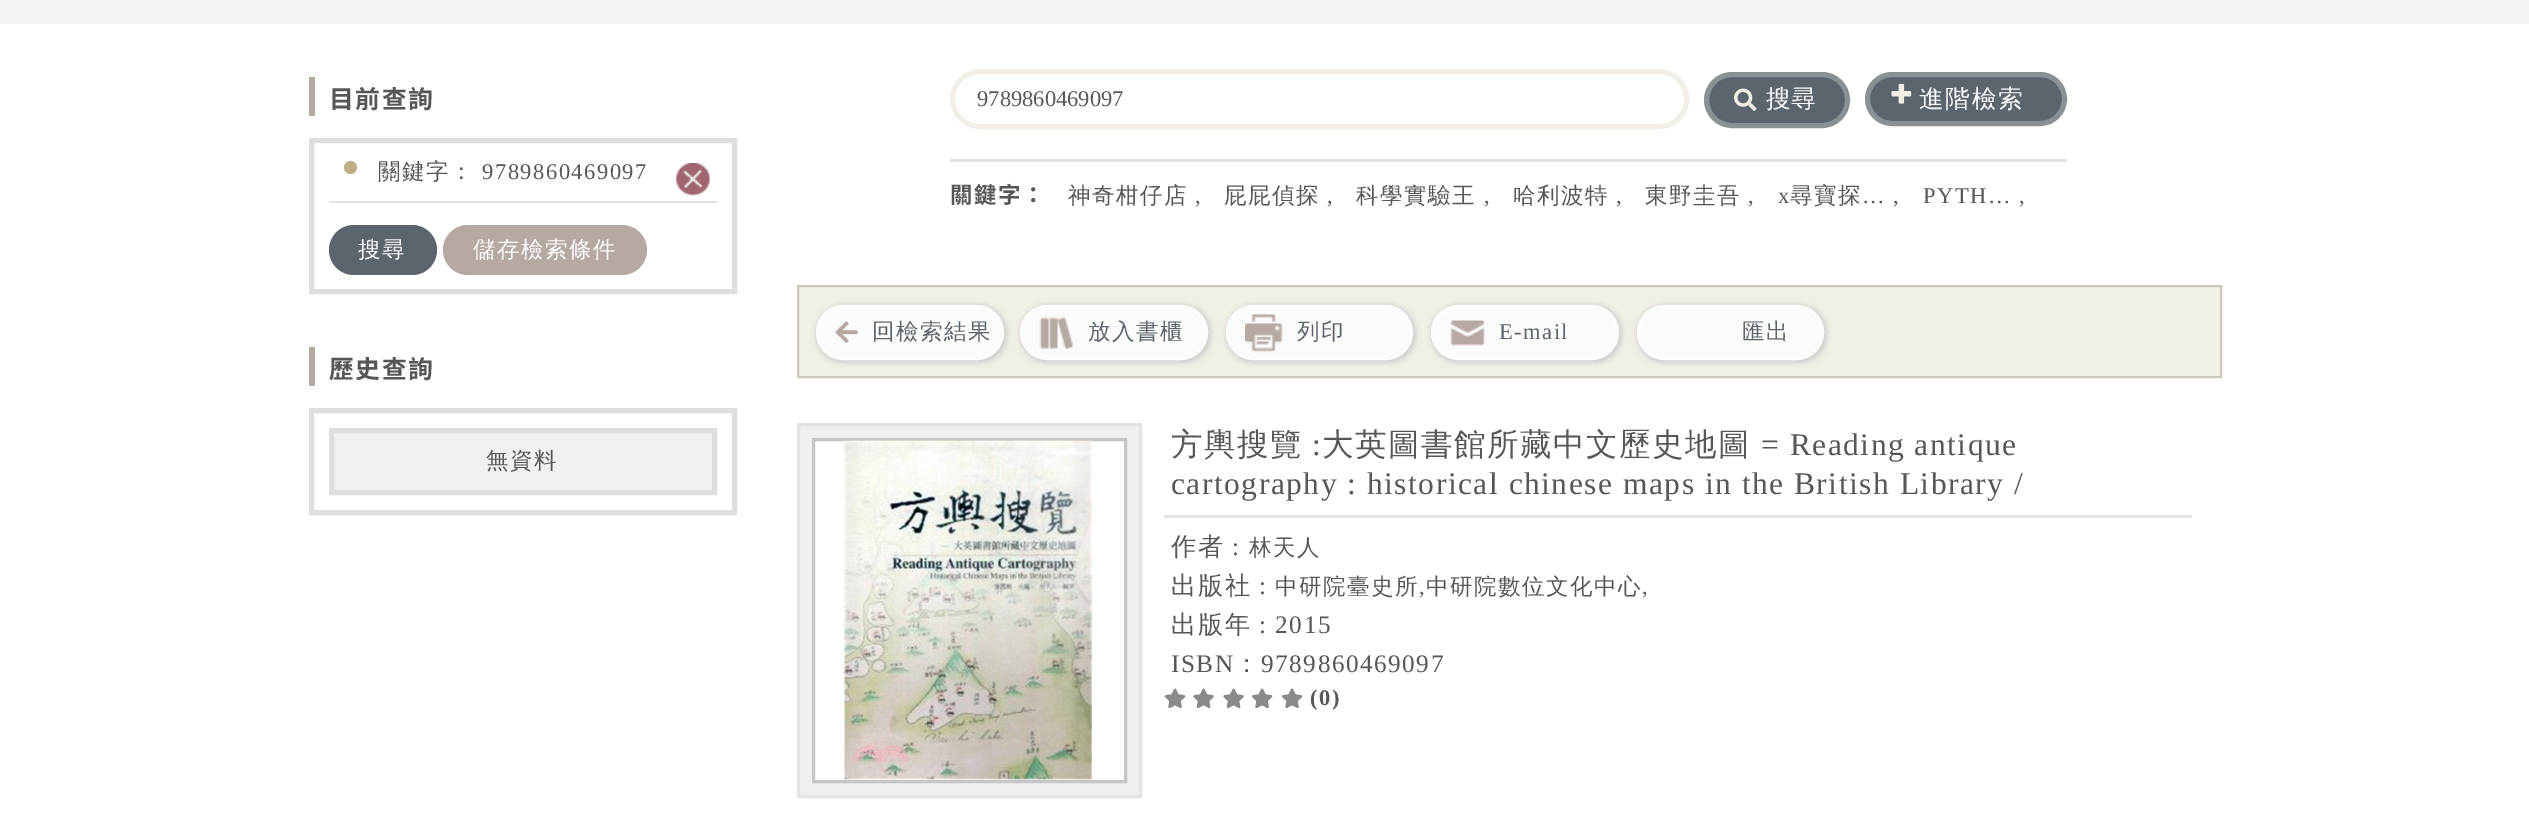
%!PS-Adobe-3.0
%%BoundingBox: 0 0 2529 839
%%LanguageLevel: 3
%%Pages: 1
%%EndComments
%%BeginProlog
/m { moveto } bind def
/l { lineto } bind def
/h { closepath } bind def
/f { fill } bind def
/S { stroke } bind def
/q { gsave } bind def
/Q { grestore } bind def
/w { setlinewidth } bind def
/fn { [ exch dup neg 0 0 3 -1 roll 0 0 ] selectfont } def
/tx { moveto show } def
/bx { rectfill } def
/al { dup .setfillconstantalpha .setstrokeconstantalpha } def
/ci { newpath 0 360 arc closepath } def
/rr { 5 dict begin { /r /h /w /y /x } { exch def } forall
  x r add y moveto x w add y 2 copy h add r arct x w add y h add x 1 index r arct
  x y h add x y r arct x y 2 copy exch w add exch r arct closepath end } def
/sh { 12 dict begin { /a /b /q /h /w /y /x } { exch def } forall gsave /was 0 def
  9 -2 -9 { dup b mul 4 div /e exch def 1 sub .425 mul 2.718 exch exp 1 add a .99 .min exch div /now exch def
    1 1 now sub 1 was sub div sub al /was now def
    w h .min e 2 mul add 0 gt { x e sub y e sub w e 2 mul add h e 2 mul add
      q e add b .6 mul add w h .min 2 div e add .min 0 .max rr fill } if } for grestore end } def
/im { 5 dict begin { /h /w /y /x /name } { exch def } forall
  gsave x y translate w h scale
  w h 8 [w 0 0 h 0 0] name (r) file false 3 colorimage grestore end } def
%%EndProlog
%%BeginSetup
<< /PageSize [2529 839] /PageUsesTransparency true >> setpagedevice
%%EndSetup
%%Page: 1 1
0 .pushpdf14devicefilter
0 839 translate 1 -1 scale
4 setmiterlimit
1 setgray
0 0 2529 839 bx
0.957 setgray
0 0 2529 24 bx
0.714 0.663 0.643 setrgbcolor
309 77 6 39 bx
/NotoSansTC-Bold 24.75 fn
0.341 setgray
329 108 m 1.5 0 (目前查詢) ashow
0.871 setgray
5 w
311.5 140.5 423 151 rectstroke
0.89 setgray
329 201 388 2 bx
0.749 0.686 0.525 setrgbcolor
350.5 167.5 6.5 ci f
/WenQuanYiZenHei-Medium 22.5 fn
0.341 setgray
378 179 m 1.5 0 (關鍵字：) ashow
/LiberationSerif-Regular 22.5 fn
482 179 m 1.5 0 (9789860469097) ashow
(image0.raw) 675 163 35 33 im
0.361 0.396 0.427 setrgbcolor
329 225 108 50 25 rr f
/WenQuanYiZenHei-Medium 22.5 fn
1 setgray
358 257 m 1.5 0 (搜尋) ashow
0.714 0.663 0.643 setrgbcolor
443 225 204 50 25 rr f
1 setgray
473 257 m 1.5 0 (儲存檢索條件) ashow
0.714 0.663 0.643 setrgbcolor
309 347 6 39 bx
/NotoSansTC-Bold 24.75 fn
0.341 setgray
329 378 m 1.5 0 (歷史查詢) ashow
0.871 setgray
311.5 410.5 423 102 rectstroke
0.941 setgray
331.5 430.5 m 714.5 430.5 l 714.5 492.5 l 331.5 492.5 l h q f Q
0.871 setgray
S
/WenQuanYiZenHei-Medium 22.5 fn
0.341 setgray
486 468 m 1.5 0 (無資料) ashow
0.949 0.937 0.906 setrgbcolor
952.5 71.5 734 55 27.5 rr S
/LiberationSerif-Regular 22.5 fn
0.341 setgray
(9789860469097) 977 106 tx
0.361 0.396 0.427 setrgbcolor
1706.5 74.5 141 51 25.5 rr q f Q
0.541 0.569 0.584 setrgbcolor
S
(image1.raw) 1734 88 23 23 im
/WenQuanYiZenHei-Medium 24.75 fn
1 setgray
(搜尋) 1766 107 tx
0.361 0.396 0.427 setrgbcolor
1867.5 74.5 197 49 24.5 rr q f Q
0.541 0.569 0.584 setrgbcolor
S
(image2.raw) 1891 83 21 21 im
1 setgray
1919 107 m 1.5 0 (進階檢索) ashow
0.89 setgray
950 159 1117 3 bx
/NotoSansTC-Bold 22.5 fn
0.341 setgray
950 203 m 1.5 0 (關鍵字：) ashow
/WenQuanYiZenHei-Medium 22.5 fn
1068 203 m 1.5 0 (神奇柑仔店) ashow
/LiberationSerif-Regular 22.5 fn
1195 203 m 1.5 0 (,) ashow
/WenQuanYiZenHei-Medium 22.5 fn
1224 203 m 1.5 0 (屁屁偵探) ashow
/LiberationSerif-Regular 22.5 fn
1327 203 m 1.5 0 (,) ashow
/WenQuanYiZenHei-Medium 22.5 fn
1356 203 m 1.5 0 (科學實驗王) ashow
/LiberationSerif-Regular 22.5 fn
1484 203 m 1.5 0 (,) ashow
/WenQuanYiZenHei-Medium 22.5 fn
1513 203 m 1.5 0 (哈利波特) ashow
/LiberationSerif-Regular 22.5 fn
1616 203 m 1.5 0 (,) ashow
/WenQuanYiZenHei-Medium 22.5 fn
1645 203 m 1.5 0 (東野圭吾) ashow
/LiberationSerif-Regular 22.5 fn
1748 203 m 1.5 0 (,) ashow
1778 203 m 1.5 0 (x) ashow
/WenQuanYiZenHei-Medium 22.5 fn
1790 203 m 1.5 0 (尋寶探) ashow
/LiberationSerif-Regular 22.5 fn
1862 203 m 1.5 0 (… ,) ashow
1923 203 m 1.5 0 (PYTH… ,) ashow
0.949 0.937 0.906 setrgbcolor
798 286 m 2221 286 l 2221 377 l 798 377 l h q f Q
0.808 0.784 0.729 setrgbcolor
2 w
S
0.8 setgray
816 305 191 58 29 3 1 sh
0.984 setgray
817 306 186 53 26.5 rr q f Q
1 setgray
S
(image3.raw) 835 321 23 22 im
/WenQuanYiZenHei-Medium 22.5 fn
0.361 0.396 0.427 setrgbcolor
872 339 m 1.5 0 (回檢索結果) ashow
0.8 setgray
1020 305 191 58 29 3 1 sh
0.984 setgray
1021 306 186 53 26.5 rr q f Q
1 setgray
S
(image4.raw) 1039 317 34 32 im
0.361 0.396 0.427 setrgbcolor
1088 339 m 1.5 0 (放入書櫃) ashow
0.8 setgray
1226 305 190 58 29 3 1 sh
0.984 setgray
1227 306 185 53 26.5 rr q f Q
1 setgray
S
(image5.raw) 1245 314 38 38 im
0.361 0.396 0.427 setrgbcolor
1297 339 m 1.5 0 (列印) ashow
0.8 setgray
1431 305 191 58 29 3 1 sh
0.984 setgray
1432 306 186 53 26.5 rr q f Q
1 setgray
S
(image6.raw) 1450 320 35 26 im
/LiberationSerif-Regular 22.5 fn
0.361 0.396 0.427 setrgbcolor
1499 339 m 1.5 0 (E-mail) ashow
0.8 setgray
1637 305 190 58 29 3 1 sh
0.984 setgray
1638 306 185 53 26.5 rr q f Q
1 setgray
S
/WenQuanYiZenHei-Medium 22.5 fn
0.361 0.396 0.427 setrgbcolor
1742 339 m 1.5 0 (匯出) ashow
0.937 setgray
798.5 424.5 m 1140.5 424.5 l 1140.5 796.5 l 798.5 796.5 l h q f Q
0.89 setgray
3 w
S
1 setgray
813.5 439.5 m 1125.5 439.5 l 1125.5 781.5 l 813.5 781.5 l h q f Q
0.776 setgray
S
(image7.raw) 844 440 248 340 im
0.89 setgray
1164 515 1028 3 bx
/WenQuanYiZenHei-Medium 31.5 fn
0.341 setgray
1171 455 m 1.5 0 (方輿搜覽) ashow
/LiberationSerif-Regular 31.5 fn
1312 455 m 1.5 0 (:) ashow
/WenQuanYiZenHei-Medium 31.5 fn
1322 455 m 1.5 0 (大英圖書館所藏中文歷史地圖) ashow
/LiberationSerif-Regular 31.5 fn
1761 455 m 1.5 0 (= Reading antique) ashow
1171 494 m 1.5 0 (cartography : historical chinese maps in the British Library /) ashow
/WenQuanYiZenHei-Medium 25.25 fn
1171 555 m 1.5 0 (作者) ashow
/LiberationSerif-Regular 25.25 fn
1232 555 m 1.5 0 (:) ashow
/WenQuanYiZenHei-Medium 22.5 fn
1249 555 m 1.5 0 (林天人) ashow
/WenQuanYiZenHei-Medium 25.25 fn
1171 594 m 1.5 0 (出版社) ashow
/LiberationSerif-Regular 25.25 fn
1259 594 m 1.5 0 (:) ashow
/WenQuanYiZenHei-Medium 22.5 fn
1275 594 m 1.5 0 (中研院臺史所) ashow
/LiberationSerif-Regular 22.5 fn
1419 594 m 1.5 0 (,) ashow
/WenQuanYiZenHei-Medium 22.5 fn
1426 594 m 1.5 0 (中研院數位文化中心) ashow
/LiberationSerif-Regular 22.5 fn
1642 594 m 1.5 0 (,) ashow
/WenQuanYiZenHei-Medium 25.25 fn
1171 633 m 1.5 0 (出版年) ashow
/LiberationSerif-Regular 25.25 fn
1259 633 m 1.5 0 (: 2015) ashow
1171 672 m 1.5 0 (ISBN) ashow
/WenQuanYiZenHei-Medium 25.25 fn
1234 672 m 1.5 0 (：) ashow
/LiberationSerif-Regular 25.25 fn
1261 672 m 1.5 0 (9789860469097) ashow
(image8.raw) 1164 688 22 21 im
(image9.raw) 1193 688 21 21 im
(image9.raw) 1223 688 21 21 im
(image8.raw) 1251 688 22 21 im
(image8.raw) 1281 688 22 21 im
/LiberationSerif-Bold 22.5 fn
1310 705 m 1.5 0 (\(0\)) ashow
.poppdf14devicefilter showpage
%%EOF
